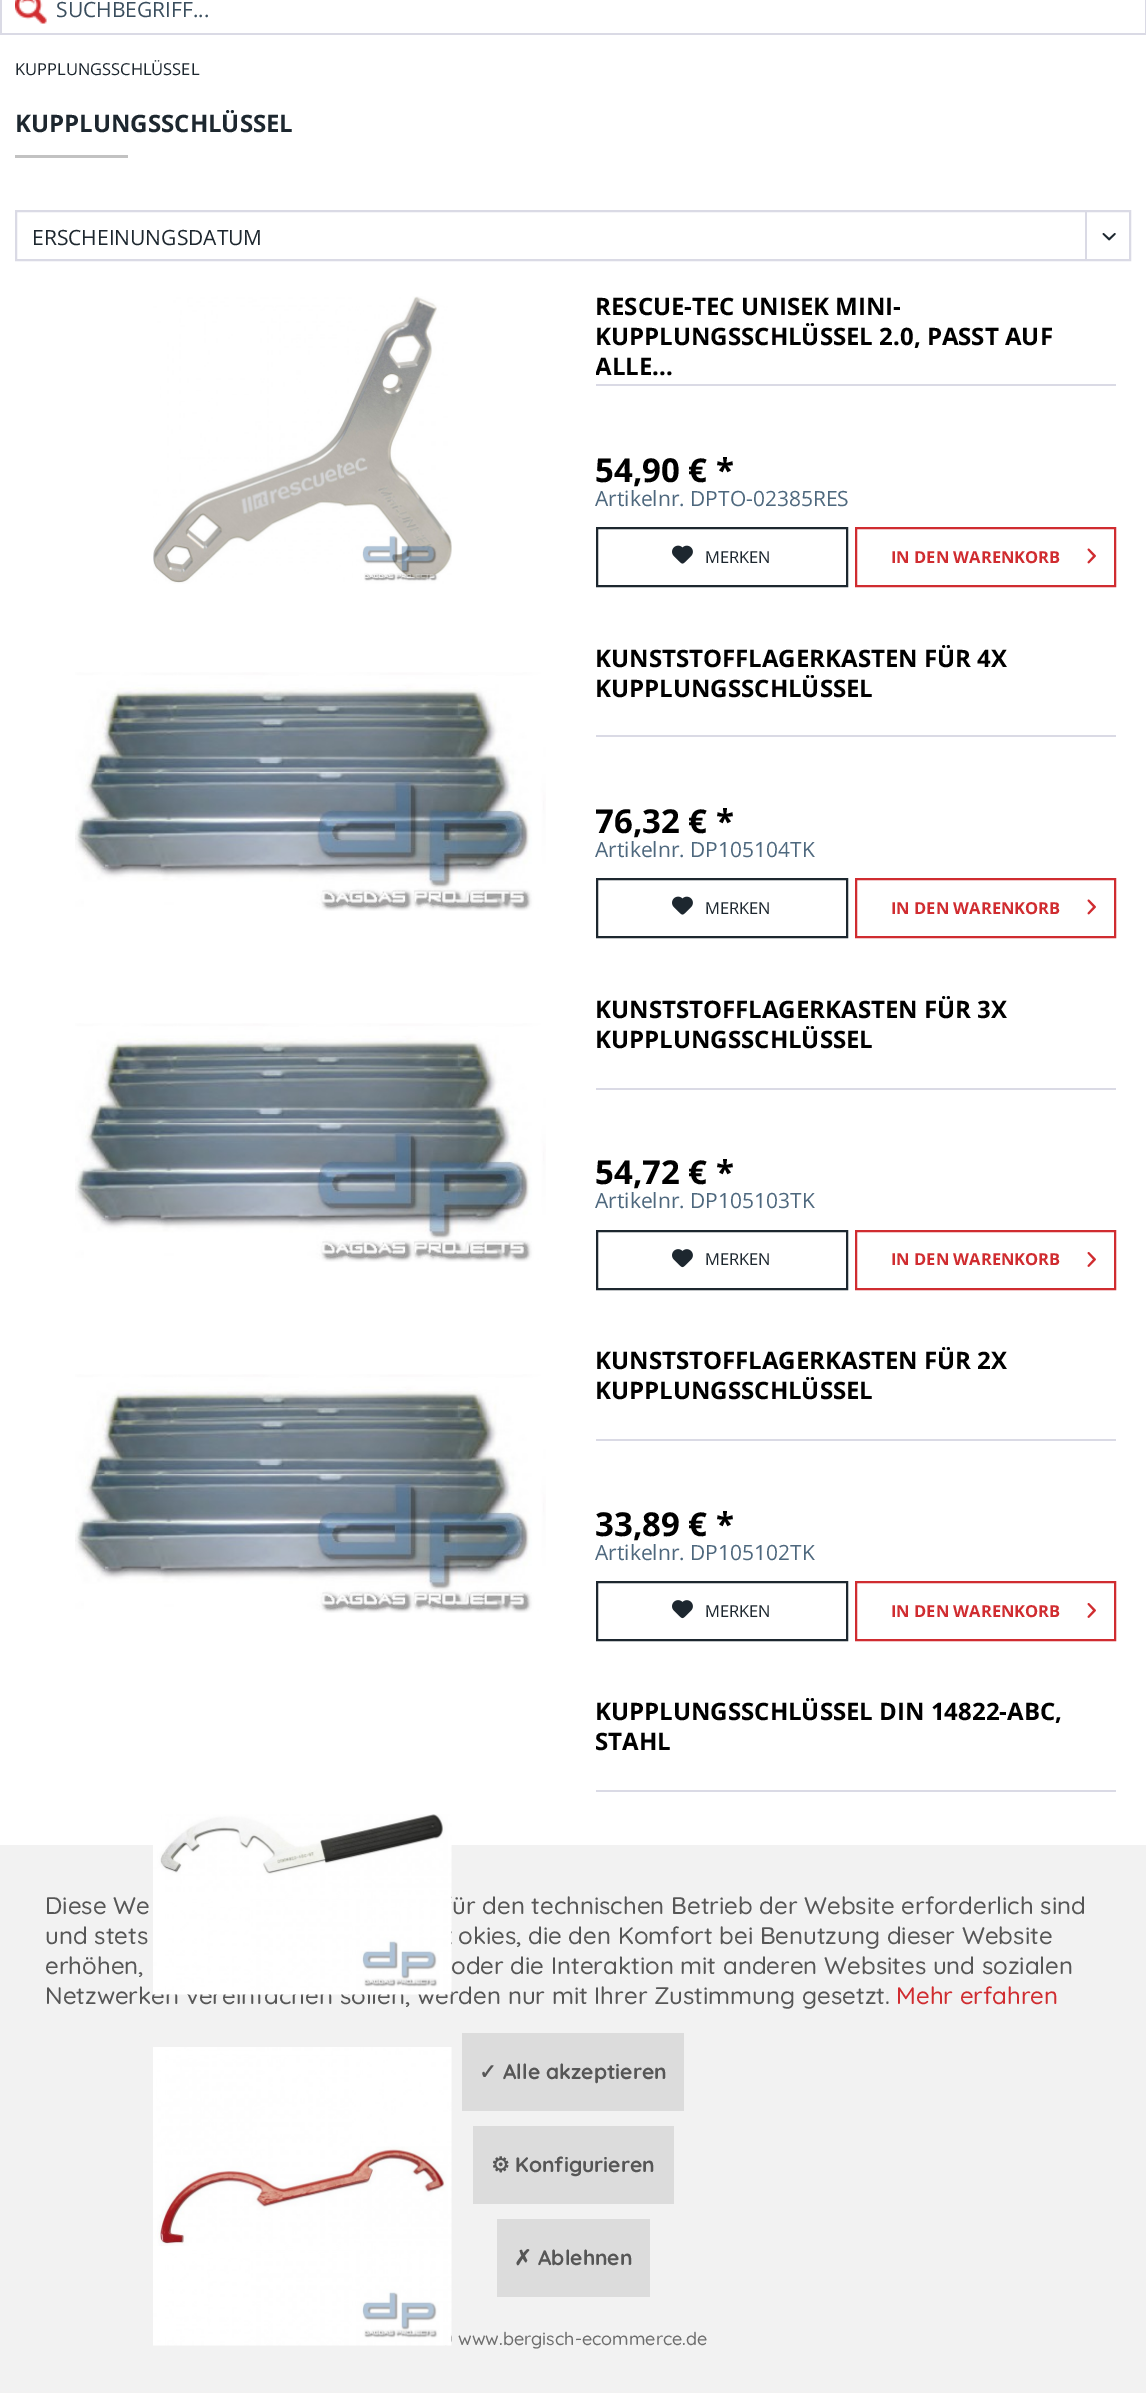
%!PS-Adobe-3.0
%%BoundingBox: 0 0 1146 2393
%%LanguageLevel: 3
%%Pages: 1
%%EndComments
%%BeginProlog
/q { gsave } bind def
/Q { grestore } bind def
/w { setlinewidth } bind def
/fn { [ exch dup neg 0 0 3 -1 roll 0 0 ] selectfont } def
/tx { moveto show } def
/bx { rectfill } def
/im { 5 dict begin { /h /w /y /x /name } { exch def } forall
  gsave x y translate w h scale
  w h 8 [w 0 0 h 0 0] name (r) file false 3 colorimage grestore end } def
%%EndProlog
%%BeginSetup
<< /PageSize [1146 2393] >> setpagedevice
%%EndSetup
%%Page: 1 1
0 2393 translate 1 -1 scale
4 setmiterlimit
1 setgray
0 0 1146 2393 bx
(image0.raw) 15 0 32 24 im
0.855 0.855 0.898 setrgbcolor
1145 0 1 35 bx
0 33 1146 2 bx
0 0 2 35 bx
/OpenSans-Regular 21 fn
0.227 0.306 0.369 setrgbcolor
(SUCHBEGRIFF...) 56 17 tx
/OpenSans-Regular 16.5 fn
0.114 0.153 0.184 setrgbcolor
(KUPPLUNGSSCHLÜSSEL) 15 75 tx
/OpenSans-Bold 24 fn
(KUPPLUNGSSCHLÜSSEL) 15 132 tx
0.761 setgray
15 155 113 3 bx
0.855 0.855 0.898 setrgbcolor
2 w
16 211 1114 49 rectstroke
/OpenSans-Regular 21 fn
0.114 0.153 0.184 setrgbcolor
(ERSCHEINUNGSDATUM) 32 245 tx
0.855 0.855 0.898 setrgbcolor
1085 212 2 49 bx
(image1.raw) 1102 233 14 8 im
(image2.raw) 153 296 299 288 im
596 384 520 2 bx
/OpenSans-Bold 24 fn
0 setgray
(RESCUE-TEC UNISEK MINI-) 595 315 tx
(KUPPLUNGSSCHLÜSSEL 2.0, PASST AUF) 595 345 tx
q
596 291 520 93 rectclip
(ALLE...) 595 375 tx
Q
/OpenSans-Bold 33 fn
(54,90 € *) 595 482 tx
/OpenSans-Regular 21 fn
0.306 0.408 0.494 setrgbcolor
(Artikelnr. DPTO-02385RES) 595 506 tx
0.114 0.153 0.184 setrgbcolor
597 528 250 58 rectstroke
(image3.raw) 672 545 21 19 im
/OpenSans-Regular 16.5 fn
(MERKEN) 705 563 tx
0.816 0.173 0.188 setrgbcolor
856 528 259 58 rectstroke
/OpenSans-Bold 16.5 fn
(IN DEN WARENKORB) 891 563 tx
(image4.raw) 1087 548 9 16 im
(image5.raw) 75 672 471 239 im
0.855 0.855 0.898 setrgbcolor
596 735 520 2 bx
/OpenSans-Bold 24 fn
0 setgray
(KUNSTSTOFFLAGERKASTEN FÜR 4X) 595 667 tx
(KUPPLUNGSSCHLÜSSEL) 595 697 tx
/OpenSans-Bold 33 fn
(76,32 € *) 595 833 tx
/OpenSans-Regular 21 fn
0.306 0.408 0.494 setrgbcolor
(Artikelnr. DP105104TK) 595 857 tx
0.114 0.153 0.184 setrgbcolor
597 879 250 58 rectstroke
(image3.raw) 672 896 21 19 im
/OpenSans-Regular 16.5 fn
(MERKEN) 705 914 tx
0.816 0.173 0.188 setrgbcolor
856 879 259 58 rectstroke
/OpenSans-Bold 16.5 fn
(IN DEN WARENKORB) 891 914 tx
(image4.raw) 1087 899 9 16 im
(image5.raw) 75 1023 471 239 im
0.855 0.855 0.898 setrgbcolor
596 1088 520 2 bx
/OpenSans-Bold 24 fn
0 setgray
(KUNSTSTOFFLAGERKASTEN FÜR 3X) 595 1018 tx
(KUPPLUNGSSCHLÜSSEL) 595 1048 tx
/OpenSans-Bold 33 fn
(54,72 € *) 595 1184 tx
/OpenSans-Regular 21 fn
0.306 0.408 0.494 setrgbcolor
(Artikelnr. DP105103TK) 595 1208 tx
0.114 0.153 0.184 setrgbcolor
597 1231 250 58 rectstroke
(image6.raw) 672 1249 21 19 im
/OpenSans-Regular 16.5 fn
(MERKEN) 705 1265 tx
0.816 0.173 0.188 setrgbcolor
856 1231 259 58 rectstroke
/OpenSans-Bold 16.5 fn
(IN DEN WARENKORB) 891 1265 tx
(image7.raw) 1087 1252 9 15 im
(image5.raw) 75 1374 471 239 im
0.855 0.855 0.898 setrgbcolor
596 1439 520 2 bx
/OpenSans-Bold 24 fn
0 setgray
(KUNSTSTOFFLAGERKASTEN FÜR 2X) 595 1369 tx
(KUPPLUNGSSCHLÜSSEL) 595 1399 tx
/OpenSans-Bold 33 fn
(33,89 € *) 595 1536 tx
/OpenSans-Regular 21 fn
0.306 0.408 0.494 setrgbcolor
(Artikelnr. DP105102TK) 595 1560 tx
0.114 0.153 0.184 setrgbcolor
597 1582 250 58 rectstroke
(image6.raw) 672 1600 21 19 im
/OpenSans-Regular 16.5 fn
(MERKEN) 705 1617 tx
0.816 0.173 0.188 setrgbcolor
856 1582 259 58 rectstroke
/OpenSans-Bold 16.5 fn
(IN DEN WARENKORB) 891 1617 tx
(image7.raw) 1087 1603 9 15 im
0.855 0.855 0.898 setrgbcolor
596 1790 520 2 bx
/OpenSans-Bold 24 fn
0 setgray
(KUPPLUNGSSCHLÜSSEL DIN 14822-ABC,) 595 1720 tx
(STAHL) 595 1750 tx
0.949 setgray
0 1845 1146 548 bx
/Quicksand-Medium 24 fn
0.337 setgray
(oder die Interaktion mit anderen Websites und sozialen) 451 1974 tx
(Netzwerken vereinfachen sollen, werden nur mit Ihrer Zustimmung gesetzt.) 45 2004 tx
(image8.raw) 153 1814 299 181 im
(image9.raw) 153 2047 299 299 im
(Diese We) 45 1914 tx
(ür den technischen Betrieb der Website erforderlich sind) 452 1914 tx
(und stets) 45 1944 tx
(okies, die den Komfort bei Benutzung dieser Website) 458 1944 tx
(erhöhen,) 45 1974 tx
0.816 0.173 0.188 setrgbcolor
(Mehr erfahren) 896 2004 tx
0.863 setgray
462 2033 222 78 bx
/DejaVuSans-Bold 21 fn
0.337 setgray
(✓) 479 2079 tx
/Quicksand-Bold 21 fn
(Alle akzeptieren) 503 2079 tx
0.863 setgray
473 2126 201 78 bx
/DejaVuSans-Bold 21 fn
0.337 setgray
(⚙) 491 2172 tx
/Quicksand-Bold 21 fn
(Konfigurieren) 515 2172 tx
0.863 setgray
497 2219 153 78 bx
/DejaVuSans-Bold 21 fn
0.337 setgray
(✗) 514 2265 tx
/Quicksand-Bold 21 fn
(Ablehnen) 538 2265 tx
/Quicksand-Medium 18 fn
0.427 setgray
(www.bergisch-ecommerce.de) 458 2345 tx
showpage
%%EOF
